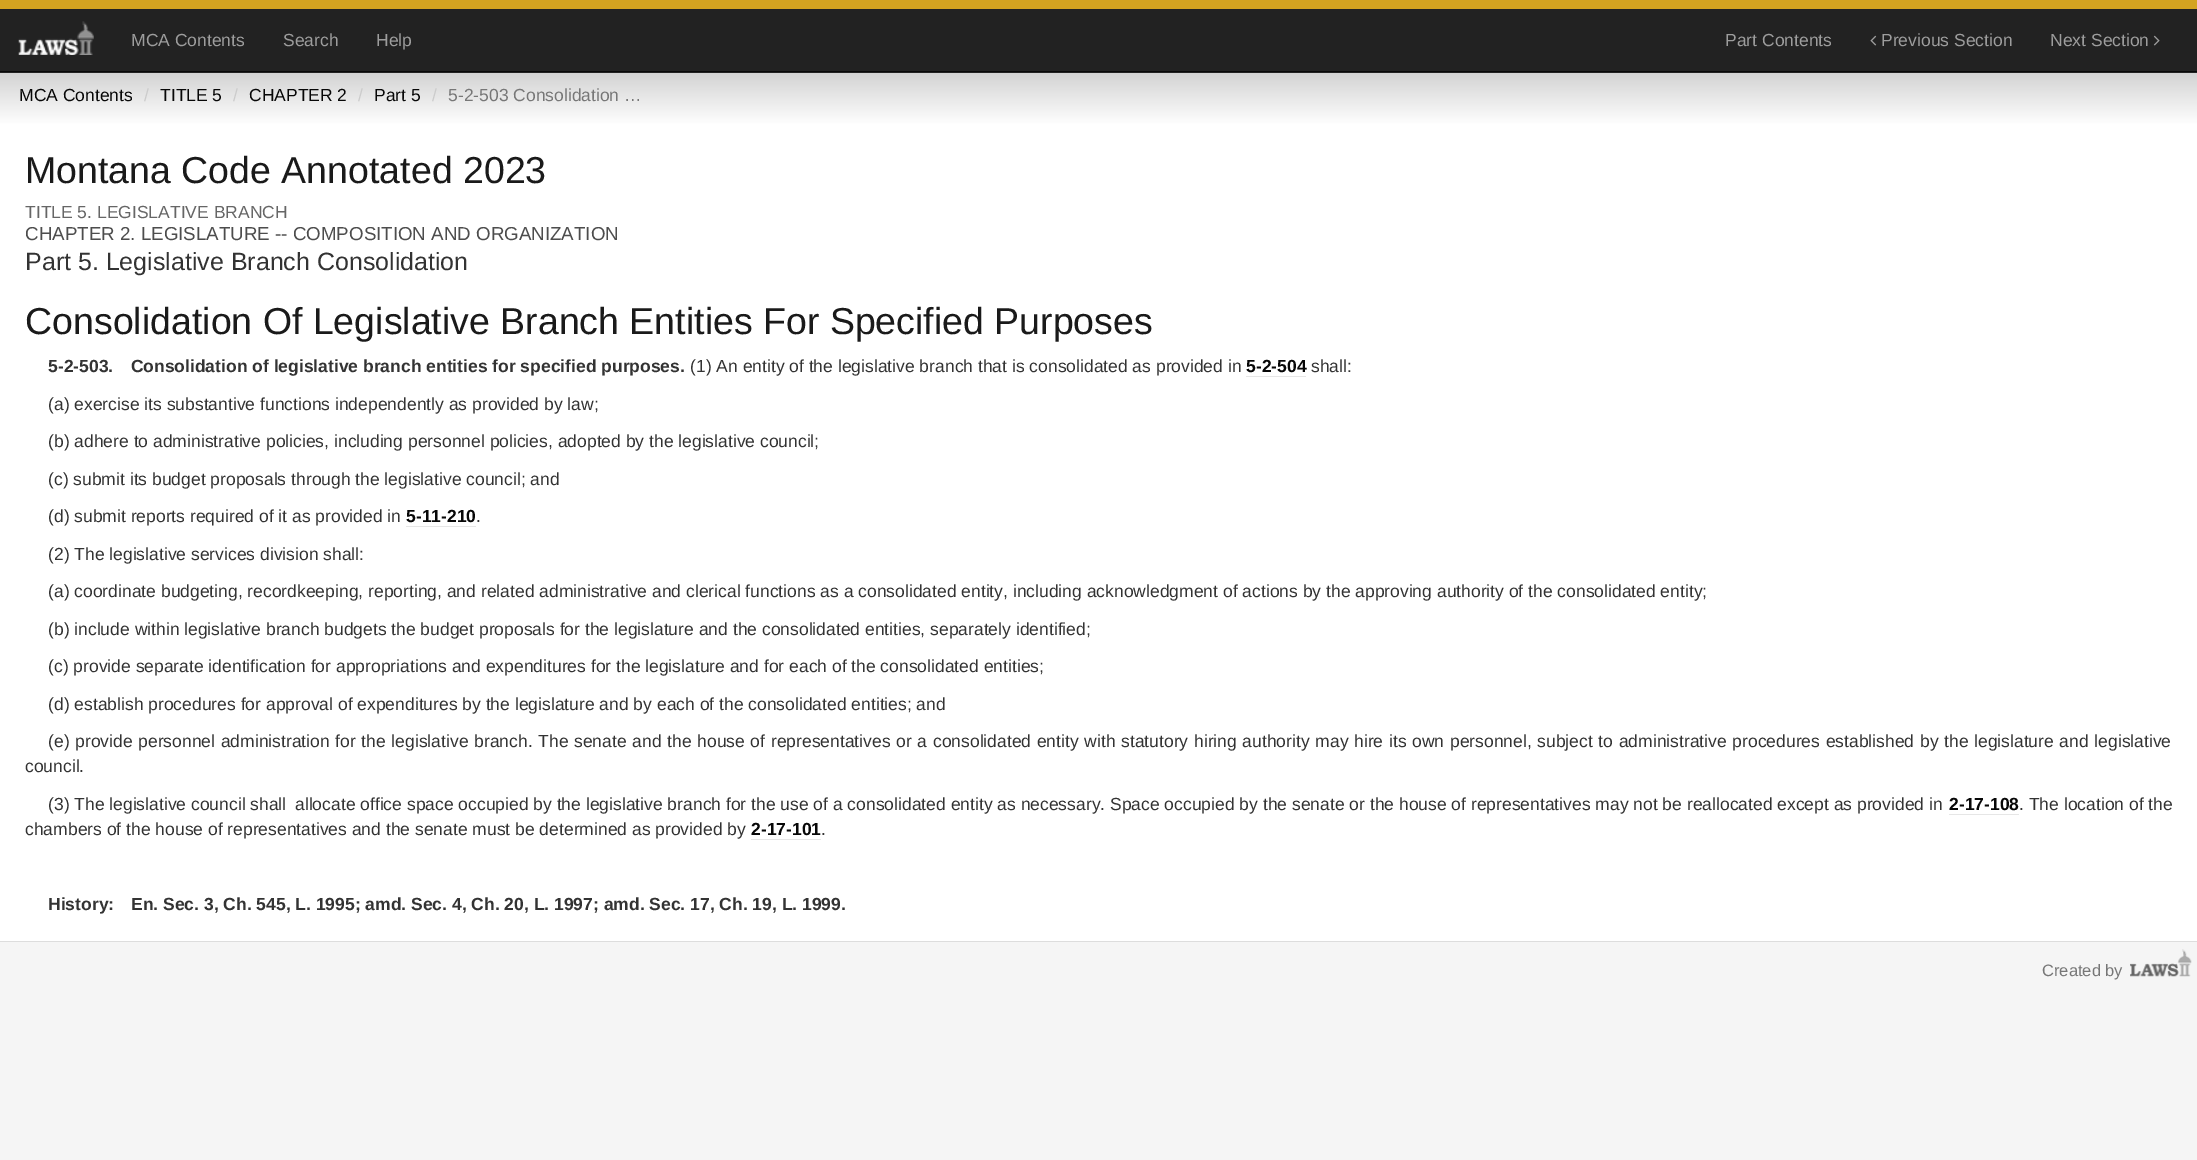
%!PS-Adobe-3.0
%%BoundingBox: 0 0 2197 1160
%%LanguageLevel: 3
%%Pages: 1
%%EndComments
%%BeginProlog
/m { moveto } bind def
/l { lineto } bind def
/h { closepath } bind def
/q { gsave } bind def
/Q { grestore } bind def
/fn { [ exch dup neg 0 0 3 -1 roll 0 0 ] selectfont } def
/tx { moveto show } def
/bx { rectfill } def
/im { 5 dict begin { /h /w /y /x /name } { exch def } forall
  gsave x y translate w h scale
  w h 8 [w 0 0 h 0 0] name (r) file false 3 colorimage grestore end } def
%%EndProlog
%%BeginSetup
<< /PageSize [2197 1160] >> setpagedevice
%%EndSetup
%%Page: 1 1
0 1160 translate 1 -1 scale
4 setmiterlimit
0.961 setgray
0 0 2197 1160 bx
1 setgray
0 124 2197 817 bx
0.133 setgray
0 9 2197 64 bx
0.831 0.639 0.125 setrgbcolor
0 0 2197 9 bx
0.031 setgray
0 71 2197 1 bx
(image0.raw) 18 21 76 34 im
/LiberationSans-Regular 17.5 fn
0.616 setgray
(MCA Contents) 131 46 tx
(Search) 283 46 tx
(Help) 376 46 tx
(Part Contents) 1725 46 tx
(image1.raw) 1870 35 7 11 im
(Previous Section) 1881 46 tx
(Next Section) 2050 46 tx
(image2.raw) 2153 35 7 11 im
q 0 73 m 2197 73 l 2197 124 l 0 124 l h clip newpath
<< /ShadingType 2 /ColorSpace /DeviceRGB /Coords [1099 72 1099 124] /Extend [true true] /Function << /FunctionType 2 /Domain [0 1] /C0 [0.824 0.824 0.824] /C1 [0.996 0.996 0.996] /N 1 >> >> shfill Q
0.027 setgray
(MCA Contents) 19 101 tx
0.8 setgray
(/) 144 101 tx
0.027 setgray
(TITLE 5) 160 101 tx
0.8 setgray
(/) 233 101 tx
0.027 setgray
(CHAPTER 2) 249 101 tx
0.8 setgray
(/) 358 101 tx
0.027 setgray
(Part 5) 374 101 tx
0.8 setgray
(/) 432 101 tx
0.467 setgray
(5-2-503 Consolidation …) 448 101 tx
/LiberationSans-Regular 37.5 fn
0.102 setgray
(Montana Code Annotated 2023) 25 183 tx
/LiberationSans-Regular 17.5 fn
0.4 setgray
(TITLE 5. LEGISLATIVE BRANCH) 25 218 tx
/LiberationSans-Regular 18.75 fn
0.302 setgray
(CHAPTER 2. LEGISLATURE -- COMPOSITION AND ORGANIZATION) 25 240 tx
/LiberationSans-Regular 25 fn
0.2 setgray
(Part 5. Legislative Branch Consolidation) 25 270 tx
/LiberationSans-Regular 37.5 fn
0.102 setgray
(Consolidation Of Legislative Branch Entities For Specified Purposes) 25 334 tx
/LiberationSans-Bold 17.5 fn
0.2 setgray
(5-2-503. Consolidation of legislative branch entities for specified purposes.) 48 372 tx
/LiberationSans-Regular 17.5 fn
(\(1\) An entity of the legislative branch that is consolidated as provided in) 690 372 tx
/LiberationSans-Bold 17.5 fn
0.027 setgray
(5-2-504) 1246 372 tx
0.902 setgray
1246 376 60 1 bx
/LiberationSans-Regular 17.5 fn
0.2 setgray
(shall:) 1311 372 tx
(\(a\) exercise its substantive functions independently as provided by law;) 48 410 tx
(\(b\) adhere to administrative policies, including personnel policies, adopted by the legislative council;) 48 447 tx
(\(c\) submit its budget proposals through the legislative council; and) 48 485 tx
(\(d\) submit reports required of it as provided in) 48 522 tx
/LiberationSans-Bold 17.5 fn
0.027 setgray
(5-11-210) 406 522 tx
0.902 setgray
406 526 70 1 bx
/LiberationSans-Regular 17.5 fn
0.2 setgray
(.) 476 522 tx
(\(2\) The legislative services division shall:) 48 560 tx
(\(a\) coordinate budgeting, recordkeeping, reporting, and related administrative and clerical functions as a consolidated entity, including acknowledgment of actions by the approving authority of the consolidated entity;) 48 597 tx
(\(b\) include within legislative branch budgets the budget proposals for the legislature and the consolidated entities, separately identified;) 48 635 tx
(\(c\) provide separate identification for appropriations and expenditures for the legislature and for each of the consolidated entities;) 48 672 tx
(\(d\) establish procedures for approval of expenditures by the legislature and by each of the consolidated entities; and) 48 710 tx
48 747 m 0.85 0 32 (\(e\) provide personnel administration for the legislative branch. The senate and the house of representatives or a consolidated entity with statutory hiring authority may hire its own personnel, subject to administrative procedures established by the legislature and legislative) widthshow
(council.) 25 772 tx
(\(3\) The legislative council shall allocate office space occupied by the legislative branch for the use of a consolidated entity as necessary. Space occupied by the senate or the house of representatives may not be reallocated except as provided in) 48 810 tx
/LiberationSans-Bold 17.5 fn
0.027 setgray
(2-17-108) 1949 810 tx
0.902 setgray
1949 814 70 1 bx
/LiberationSans-Regular 17.5 fn
0.2 setgray
(. The location of the) 2019 810 tx
(chambers of the house of representatives and the senate must be determined as provided by) 25 835 tx
/LiberationSans-Bold 17.5 fn
0.027 setgray
(2-17-101) 751 835 tx
0.902 setgray
751 839 70 1 bx
/LiberationSans-Regular 17.5 fn
0.2 setgray
(.) 821 835 tx
/LiberationSans-Bold 17.5 fn
(History:) 48 910 tx
(En. Sec. 3, Ch. 545, L. 1995; amd. Sec. 4, Ch. 20, L. 1997; amd. Sec. 17, Ch. 19, L. 1999.) 131 910 tx
0.867 setgray
0 941 2197 1 bx
/LiberationSans-Regular 16.5 fn
0.467 setgray
(Created by) 2042 976 tx
(image3.raw) 2130 949 62 28 im
showpage
%%EOF
